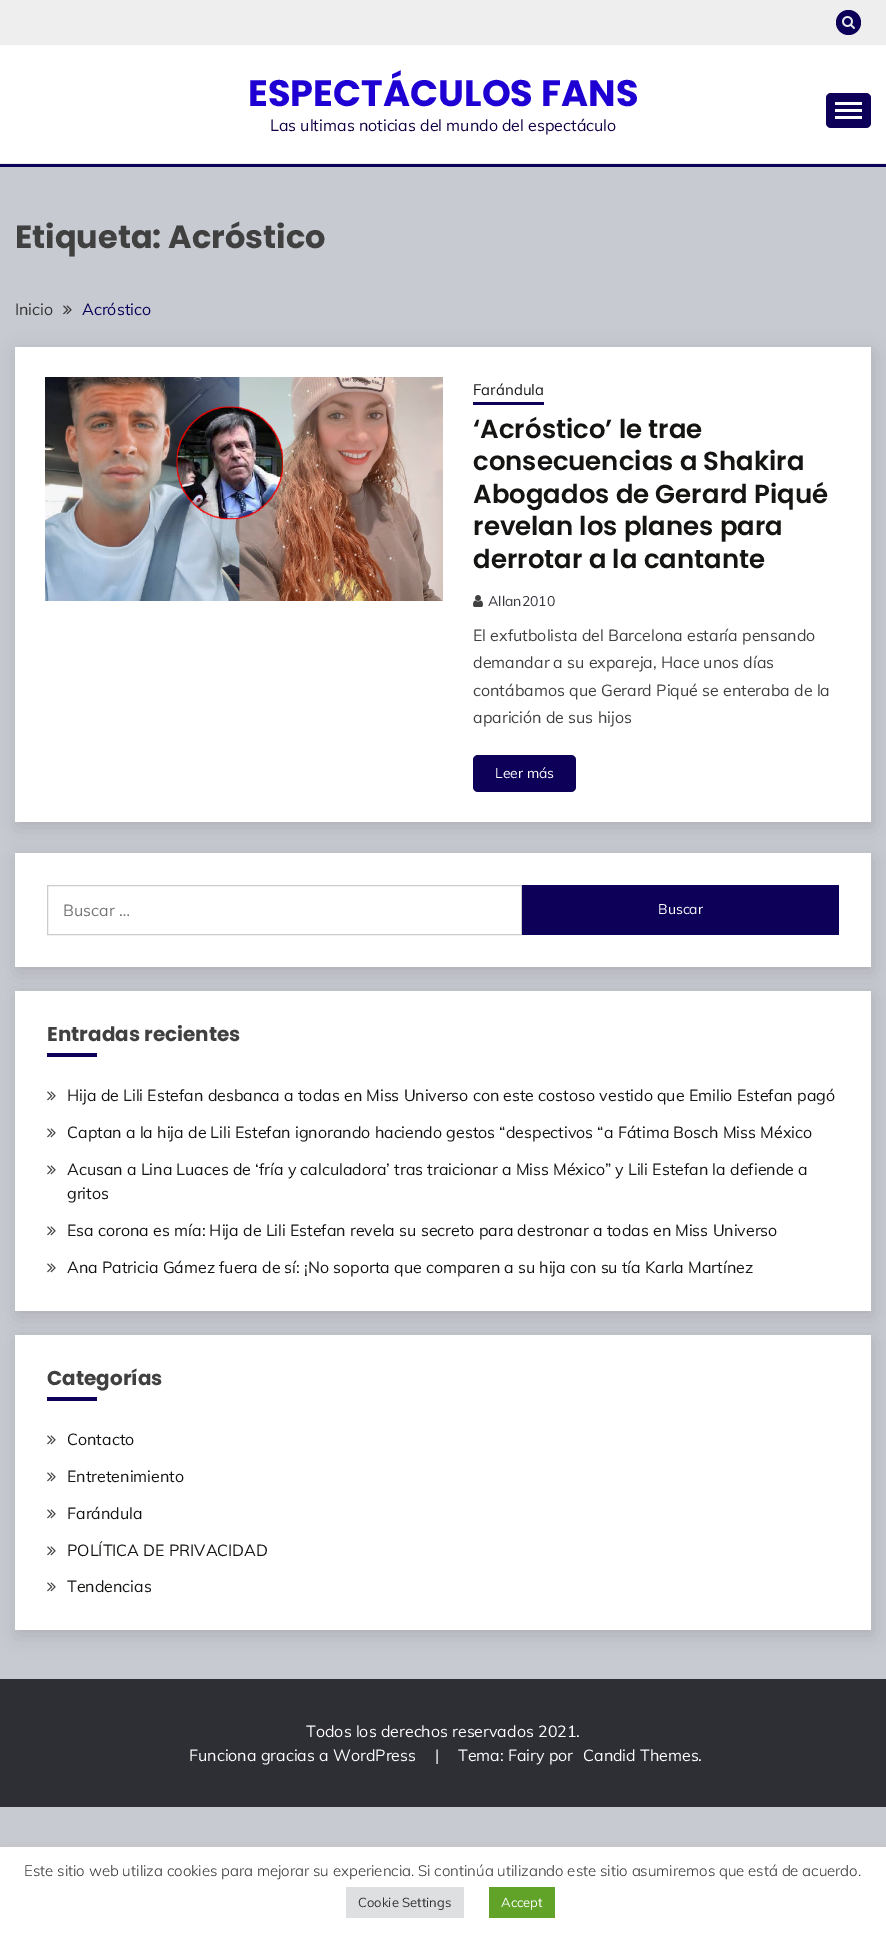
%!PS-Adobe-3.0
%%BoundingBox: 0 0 886 1935
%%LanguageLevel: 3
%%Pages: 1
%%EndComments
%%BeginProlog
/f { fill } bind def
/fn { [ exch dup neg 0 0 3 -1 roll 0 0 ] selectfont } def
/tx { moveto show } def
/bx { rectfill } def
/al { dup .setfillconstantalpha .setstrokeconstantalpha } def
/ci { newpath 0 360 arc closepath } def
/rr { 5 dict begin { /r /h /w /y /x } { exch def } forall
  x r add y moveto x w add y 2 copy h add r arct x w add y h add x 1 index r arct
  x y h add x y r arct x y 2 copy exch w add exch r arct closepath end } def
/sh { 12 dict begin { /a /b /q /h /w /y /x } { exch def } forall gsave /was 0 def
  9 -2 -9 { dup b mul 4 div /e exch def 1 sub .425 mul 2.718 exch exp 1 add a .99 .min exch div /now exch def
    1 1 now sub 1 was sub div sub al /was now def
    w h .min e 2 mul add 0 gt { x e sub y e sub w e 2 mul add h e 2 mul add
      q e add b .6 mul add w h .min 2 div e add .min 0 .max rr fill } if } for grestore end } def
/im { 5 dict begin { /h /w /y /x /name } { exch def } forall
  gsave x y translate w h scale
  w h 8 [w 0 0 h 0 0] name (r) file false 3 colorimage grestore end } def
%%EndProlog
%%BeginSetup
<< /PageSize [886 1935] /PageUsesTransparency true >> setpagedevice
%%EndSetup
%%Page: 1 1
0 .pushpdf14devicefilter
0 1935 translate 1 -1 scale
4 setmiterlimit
0.784 0.792 0.82 setrgbcolor
0 0 886 1935 bx
1 setgray
0 45 886 118 bx
0.933 setgray
0 0 886 45 bx
0.051 0 0.349 setrgbcolor
848.5 22.5 12.5 ci f
(image0.raw) 842 16 13 13 im
0.933 setgray
0 163 886 1 bx
/Poppins-Bold 36.75 fn
0.122 0 0.827 setrgbcolor
(ESPECTÁCULOS FANS) 248 106 tx
/Muli-Regular 16 fn
0.078 0 0.267 setrgbcolor
(Las ultimas noticias del mundo del espectáculo) 270 131 tx
0.051 0 0.349 setrgbcolor
826 93 45 35 5 rr f
1 setgray
835 102 27 3 bx
835 109 27 3 bx
835 116 27 3 bx
0.051 0 0.349 setrgbcolor
0 164 886 3 bx
/Poppins-Bold 32 fn
0.251 setgray
(Etiqueta: Acróstico) 15 248 tx
/Muli-Regular 16 fn
0.2 setgray
(Inicio) 15 315 tx
(image1.raw) 63 305 9 10 im
0.051 0 0.349 setrgbcolor
(Acróstico) 82 315 tx
0 setgray
17 352 856 475 0 10 0.14 sh
1 setgray
15 347 856 475 bx
(image2.raw) 45 377 398 224 im
/Muli-Regular 15 fn
0.078 0.078 0.075 setrgbcolor
(Farándula) 473 395 tx
0.051 0 0.349 setrgbcolor
473 402 71 3 bx
/Poppins-SemiBold 26 fn
0.078 0.078 0.075 setrgbcolor
(‘Acróstico’ le trae) 473 438 tx
(consecuencias a Shakira) 473 470 tx
(Abogados de Gerard Piqué) 473 503 tx
(revelan los planes para) 473 535 tx
(derrotar a la cantante) 473 568 tx
(image3.raw) 473 595 10 12 im
/Muli-Regular 14 fn
0.216 0.216 0.247 setrgbcolor
(Allan2010) 488 606 tx
/Muli-Regular 16 fn
0.251 setgray
(El exfutbolista del Barcelona estaría pensando) 473 641 tx
(demandar a su expareja, Hace unos días) 473 668 tx
(contábamos que Gerard Piqué se enteraba de la) 473 696 tx
(aparición de sus hijos) 473 723 tx
0.051 0 0.349 setrgbcolor
473 755 103 37 5 rr f
/Muli-Regular 14 fn
1 setgray
(Leer más) 495 778 tx
0 setgray
17 858 856 114 0 10 0.14 sh
1 setgray
15 853 856 114 bx
0.8 setgray
47.5 885.5 474 49 rectstroke
/Muli-Regular 16 fn
0.459 setgray
(Buscar …) 63 916 tx
0.051 0 0.349 setrgbcolor
522 885 317 50 bx
/Muli-Regular 14 fn
1 setgray
(Buscar) 658 914 tx
0 setgray
17 996 856 320 0 10 0.14 sh
1 setgray
15 991 856 320 bx
/Poppins-Bold 20 fn
0.251 setgray
(Entradas recientes) 47 1041 tx
0.051 0 0.349 setrgbcolor
47 1053 50 4 bx
(image4.raw) 47 1091 9 10 im
/Muli-Regular 16 fn
0.078 0.078 0.075 setrgbcolor
(Hija de Lili Estefan desbanca a todas en Miss Universo con este costoso vestido que Emilio Estefan pagó) 67 1101 tx
(image4.raw) 47 1128 9 10 im
(Captan a la hija de Lili Estefan ignorando haciendo gestos “despectivos “a Fátima Bosch Miss México) 67 1138 tx
(image4.raw) 47 1165 9 10 im
(Acusan a Lina Luaces de ‘fría y calculadora’ tras traicionar a Miss México” y Lili Estefan la defiende a) 67 1175 tx
(gritos) 67 1199 tx
(image4.raw) 47 1226 9 10 im
(Esa corona es mía: Hija de Lili Estefan revela su secreto para destronar a todas en Miss Universo) 67 1236 tx
(image4.raw) 47 1263 9 10 im
(Ana Patricia Gámez fuera de sí: ¡No soporta que comparen a su hija con su tía Karla Martínez) 67 1273 tx
0 setgray
17 1340 856 295 0 10 0.14 sh
1 setgray
15 1335 856 295 bx
/Poppins-Bold 20 fn
0.251 setgray
(Categorías) 47 1385 tx
0.051 0 0.349 setrgbcolor
47 1397 50 4 bx
(image4.raw) 47 1435 9 10 im
/Muli-Regular 16 fn
0.078 0.078 0.075 setrgbcolor
(Contacto) 67 1445 tx
(image4.raw) 47 1472 9 10 im
(Entretenimiento) 67 1482 tx
(image4.raw) 47 1509 9 10 im
(Farándula) 67 1519 tx
(image4.raw) 47 1546 9 10 im
(POLÍTICA DE PRIVACIDAD) 67 1556 tx
(image4.raw) 47 1582 9 10 im
(Tendencias) 67 1592 tx
0.18 0.18 0.208 setrgbcolor
0 1679 886 128 bx
1 setgray
(Todos los derechos reservados 2021.) 306 1737 tx
(Funciona gracias a WordPress) 189 1761 tx
(|) 435 1761 tx
(Tema: Fairy por) 458 1761 tx
(Candid Themes.) 583 1761 tx
0.675 0.671 0.671 setrgbcolor
0 1846 886 88 0 5 0.3 sh
1 setgray
0 1847 886 88 bx
/Muli-Light 15 fn
0.2 setgray
(Este sitio web utiliza cookies para mejorar su experiencia. Si continúa utilizando este sitio asumiremos que está de acuerdo.) 24 1876 tx
0.871 0.875 0.878 setrgbcolor
346 1887 118 31 bx
/Muli-Regular 13 fn
0.2 setgray
(Cookie Settings) 358 1907 tx
0.38 0.635 0.161 setrgbcolor
489 1887 66 31 bx
1 setgray
(Accept) 501 1907 tx
.poppdf14devicefilter showpage
%%EOF
